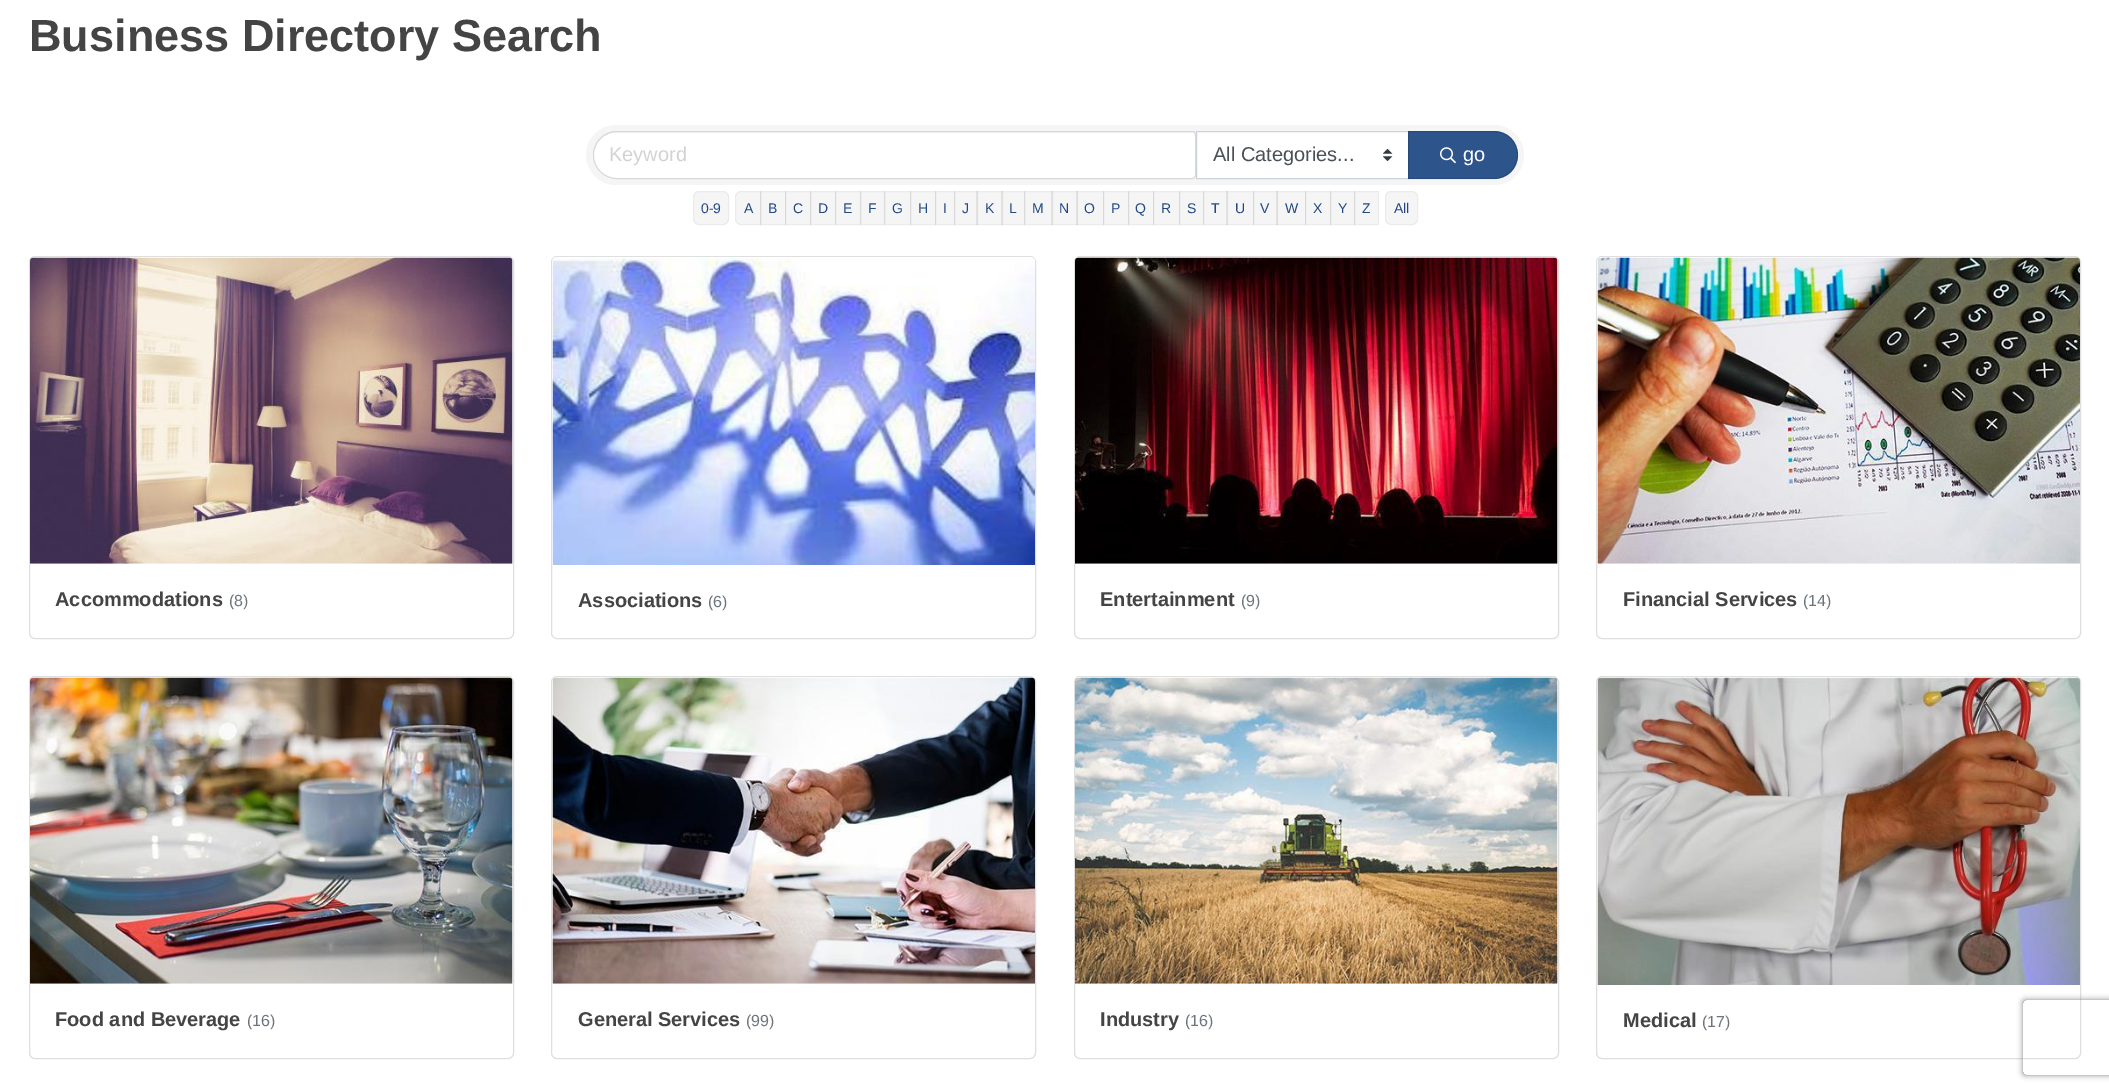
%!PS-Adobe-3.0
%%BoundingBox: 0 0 2109 1092
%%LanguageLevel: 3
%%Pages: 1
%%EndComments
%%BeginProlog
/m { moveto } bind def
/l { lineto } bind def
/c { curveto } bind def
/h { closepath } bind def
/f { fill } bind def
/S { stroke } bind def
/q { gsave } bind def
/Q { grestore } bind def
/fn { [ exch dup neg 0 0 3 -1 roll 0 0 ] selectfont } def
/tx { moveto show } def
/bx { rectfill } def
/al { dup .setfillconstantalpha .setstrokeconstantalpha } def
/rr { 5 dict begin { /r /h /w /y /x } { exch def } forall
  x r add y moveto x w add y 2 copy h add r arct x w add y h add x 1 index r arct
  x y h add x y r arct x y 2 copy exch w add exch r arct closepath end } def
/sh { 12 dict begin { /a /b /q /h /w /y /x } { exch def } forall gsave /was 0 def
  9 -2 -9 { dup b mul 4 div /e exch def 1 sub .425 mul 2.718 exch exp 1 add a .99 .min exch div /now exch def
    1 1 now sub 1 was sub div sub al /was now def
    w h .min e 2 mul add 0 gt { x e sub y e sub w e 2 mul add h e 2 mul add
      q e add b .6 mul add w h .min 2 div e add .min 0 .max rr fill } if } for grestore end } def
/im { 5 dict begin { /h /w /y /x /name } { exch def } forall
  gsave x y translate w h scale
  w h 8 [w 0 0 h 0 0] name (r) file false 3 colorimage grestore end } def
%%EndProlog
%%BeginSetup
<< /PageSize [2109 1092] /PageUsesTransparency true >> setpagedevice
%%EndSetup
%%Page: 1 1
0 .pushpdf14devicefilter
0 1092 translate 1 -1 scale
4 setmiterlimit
1 setgray
0 0 2109 1092 bx
/LiberationSans-Bold 45 fn
0.267 setgray
(Business Directory Search) 29 51 tx
0.961 setgray
586 125 938 60 30 rr f
1 setgray
616.5 133 m 1192.5 133 l 1194 133 1195 134 1195 135.5 c 1195 175.5 l 1195 177 1194 178 1192.5 178 c 616.5 178 l 604 178 594 168 594 155.5 c 594 143 604 133 616.5 133 c h f
0.12 al
0 setgray
617 131.5 m 1192 131.5 l 1194 131.5 1195.5 133 1195.5 135 c 1195.5 175 l 1195.5 177 1194 178.5 1192 178.5 c 617 178.5 l 604 178.5 593.5 168 593.5 155 c 593.5 142 604 131.5 617 131.5 c h S
/LiberationSans-Regular 20 fn
1 al
0.824 setgray
(Keyword) 609 161 tx
1 setgray
1197 132 211 46 bx
(image0.raw) 1383 149 10 12 im
0.808 0.831 0.855 setrgbcolor
1196.5 131.5 212 47 rectstroke
0.286 0.314 0.341 setrgbcolor
(All Categories...) 1213 161 tx
0.176 0.329 0.545 setrgbcolor
1408 131 m 1494 131 l 1507.5 131 1518 141.5 1518 155 c 1518 168.5 1507.5 179 1494 179 c 1408 179 l h f
0.12 al
0 setgray
1408.5 131.5 m 1494 131.5 l 1507 131.5 1517.5 142 1517.5 155 c 1517.5 168 1507 178.5 1494 178.5 c 1408.5 178.5 l h S
1 al
(image1.raw) 1440 147 16 17 im
1 setgray
(go) 1463 161 tx
0.961 setgray
693.5 191.5 35 33 5.5 rr q f Q
0.922 setgray
S
/LiberationSans-Regular 14 fn
0.133 0.282 0.518 setrgbcolor
(0-9) 701 213 tx
0.961 setgray
741 191.5 m 760.5 191.5 l 760.5 224.5 l 741 224.5 l 738 224.5 735.5 222 735.5 219 c 735.5 197 l 735.5 194 738 191.5 741 191.5 c h q f Q
0.922 setgray
S
0.133 0.282 0.518 setrgbcolor
(A) 744 213 tx
0.04 al
0 setgray
760 191 26 34 bx
760.5 191.5 25 33 rectstroke
1 al
0.133 0.282 0.518 setrgbcolor
(B) 768 213 tx
0.04 al
0 setgray
785 191 26 34 bx
785.5 191.5 25 33 rectstroke
1 al
0.133 0.282 0.518 setrgbcolor
(C) 793 213 tx
0.04 al
0 setgray
810 191 26 34 bx
810.5 191.5 25 33 rectstroke
1 al
0.133 0.282 0.518 setrgbcolor
(D) 818 213 tx
0.04 al
0 setgray
835 191 26 34 bx
835.5 191.5 25 33 rectstroke
1 al
0.133 0.282 0.518 setrgbcolor
(E) 843 213 tx
0.04 al
0 setgray
860 191 25 34 bx
860.5 191.5 24 33 rectstroke
1 al
0.133 0.282 0.518 setrgbcolor
(F) 868 213 tx
0.04 al
0 setgray
884 191 27 34 bx
884.5 191.5 26 33 rectstroke
1 al
0.133 0.282 0.518 setrgbcolor
(G) 892 213 tx
0.04 al
0 setgray
910 191 26 34 bx
910.5 191.5 25 33 rectstroke
1 al
0.133 0.282 0.518 setrgbcolor
(H) 918 213 tx
0.04 al
0 setgray
935 191 20 34 bx
935.5 191.5 19 33 rectstroke
1 al
0.133 0.282 0.518 setrgbcolor
(I) 943 213 tx
0.04 al
0 setgray
954 191 24 34 bx
954.5 191.5 23 33 rectstroke
1 al
0.133 0.282 0.518 setrgbcolor
(J) 962 213 tx
0.04 al
0 setgray
976 191 27 34 bx
976.5 191.5 26 33 rectstroke
1 al
0.133 0.282 0.518 setrgbcolor
(K) 985 213 tx
0.04 al
0 setgray
1001 191 24 34 bx
1001.5 191.5 23 33 rectstroke
1 al
0.133 0.282 0.518 setrgbcolor
(L) 1009 213 tx
0.04 al
0 setgray
1024 191 29 34 bx
1024.5 191.5 28 33 rectstroke
1 al
0.133 0.282 0.518 setrgbcolor
(M) 1032 213 tx
0.04 al
0 setgray
1051 191 27 34 bx
1051.5 191.5 26 33 rectstroke
1 al
0.133 0.282 0.518 setrgbcolor
(N) 1059 213 tx
0.04 al
0 setgray
1076 191 28 34 bx
1076.5 191.5 27 33 rectstroke
1 al
0.133 0.282 0.518 setrgbcolor
(O) 1084 213 tx
0.04 al
0 setgray
1103 191 26 34 bx
1103.5 191.5 25 33 rectstroke
1 al
0.133 0.282 0.518 setrgbcolor
(P) 1111 213 tx
0.04 al
0 setgray
1128 191 26 34 bx
1128.5 191.5 25 33 rectstroke
1 al
0.133 0.282 0.518 setrgbcolor
(Q) 1135 213 tx
0.04 al
0 setgray
1153 191 27 34 bx
1153.5 191.5 26 33 rectstroke
1 al
0.133 0.282 0.518 setrgbcolor
(R) 1161 213 tx
0.04 al
0 setgray
1179 191 25 34 bx
1179.5 191.5 24 33 rectstroke
1 al
0.133 0.282 0.518 setrgbcolor
(S) 1187 213 tx
0.04 al
0 setgray
1203 191 25 34 bx
1203.5 191.5 24 33 rectstroke
1 al
0.133 0.282 0.518 setrgbcolor
(T) 1211 213 tx
0.04 al
0 setgray
1226 191 28 34 bx
1226.5 191.5 27 33 rectstroke
1 al
0.133 0.282 0.518 setrgbcolor
(U) 1235 213 tx
0.04 al
0 setgray
1253 191 25 34 bx
1253.5 191.5 24 33 rectstroke
1 al
0.133 0.282 0.518 setrgbcolor
(V) 1260 213 tx
0.04 al
0 setgray
1276 191 30 34 bx
1276.5 191.5 29 33 rectstroke
1 al
0.133 0.282 0.518 setrgbcolor
(W) 1285 213 tx
0.04 al
0 setgray
1305 191 26 34 bx
1305.5 191.5 25 33 rectstroke
1 al
0.133 0.282 0.518 setrgbcolor
(X) 1313 213 tx
0.04 al
0 setgray
1330 191 25 34 bx
1330.5 191.5 24 33 rectstroke
1 al
0.133 0.282 0.518 setrgbcolor
(Y) 1338 213 tx
0.04 al
0 setgray
1354 191 25 34 bx
1354.5 191.5 24 33 rectstroke
1 al
0.133 0.282 0.518 setrgbcolor
(Z) 1362 213 tx
0.961 setgray
1385.5 191.5 32 33 5.5 rr q f Q
0.922 setgray
S
0.133 0.282 0.518 setrgbcolor
(All) 1394 213 tx
0.875 setgray
29.5 256.5 484 382 5.5 rr S
(image2.raw) 30 257 483 307 im
/LiberationSans-Bold 20 fn
0.267 setgray
(Accommodations) 55 606 tx
/LiberationSans-Regular 16 fn
0.424 0.459 0.49 setrgbcolor
(\(8\)) 229 606 tx
0.875 setgray
551.5 256.5 484 382 5.5 rr S
(image3.raw) 552 257 483 308 im
/LiberationSans-Bold 20 fn
0.267 setgray
(Associations) 578 607 tx
/LiberationSans-Regular 16 fn
0.424 0.459 0.49 setrgbcolor
(\(6\)) 708 607 tx
0.875 setgray
1074.5 256.5 484 382 5.5 rr S
(image4.raw) 1075 257 483 307 im
/LiberationSans-Bold 20 fn
0.267 setgray
(Entertainment) 1100 606 tx
/LiberationSans-Regular 16 fn
0.424 0.459 0.49 setrgbcolor
(\(9\)) 1241 606 tx
0.875 setgray
1596.5 256.5 484 382 5.5 rr S
(image5.raw) 1597 257 483 307 im
/LiberationSans-Bold 20 fn
0.267 setgray
(Financial Services) 1623 606 tx
/LiberationSans-Regular 16 fn
0.424 0.459 0.49 setrgbcolor
(\(14\)) 1803 606 tx
0.875 setgray
29.5 676.5 484 382 5.5 rr S
(image6.raw) 30 677 483 307 im
/LiberationSans-Bold 20 fn
0.267 setgray
(Food and Beverage) 55 1026 tx
/LiberationSans-Regular 16 fn
0.424 0.459 0.49 setrgbcolor
(\(16\)) 247 1026 tx
0.875 setgray
551.5 676.5 484 382 5.5 rr S
(image7.raw) 552 677 483 307 im
/LiberationSans-Bold 20 fn
0.267 setgray
(General Services) 578 1026 tx
/LiberationSans-Regular 16 fn
0.424 0.459 0.49 setrgbcolor
(\(99\)) 746 1026 tx
0.875 setgray
1074.5 676.5 484 382 5.5 rr S
(image8.raw) 1075 677 483 307 im
/LiberationSans-Bold 20 fn
0.267 setgray
(Industry) 1100 1026 tx
/LiberationSans-Regular 16 fn
0.424 0.459 0.49 setrgbcolor
(\(16\)) 1185 1026 tx
0.875 setgray
1596.5 676.5 484 382 5.5 rr S
(image9.raw) 1597 677 483 308 im
/LiberationSans-Bold 20 fn
0.267 setgray
(Medical) 1623 1027 tx
/LiberationSans-Regular 16 fn
0.424 0.459 0.49 setrgbcolor
(\(17\)) 1702 1027 tx
q
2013 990 m 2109 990 l 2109 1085 l 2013 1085 l h 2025.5 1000 m 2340.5 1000 l 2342 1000 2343 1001 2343 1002.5 c 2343 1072.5 l 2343 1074 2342 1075 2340.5 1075 c 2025.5 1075 l 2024 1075 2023 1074 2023 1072.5 c 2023 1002.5 l 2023 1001 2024 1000 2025.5 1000 c h eoclip newpath
0.502 setgray
2023 1000 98 75 2.5 3 1 sh
Q
.poppdf14devicefilter showpage
%%EOF
